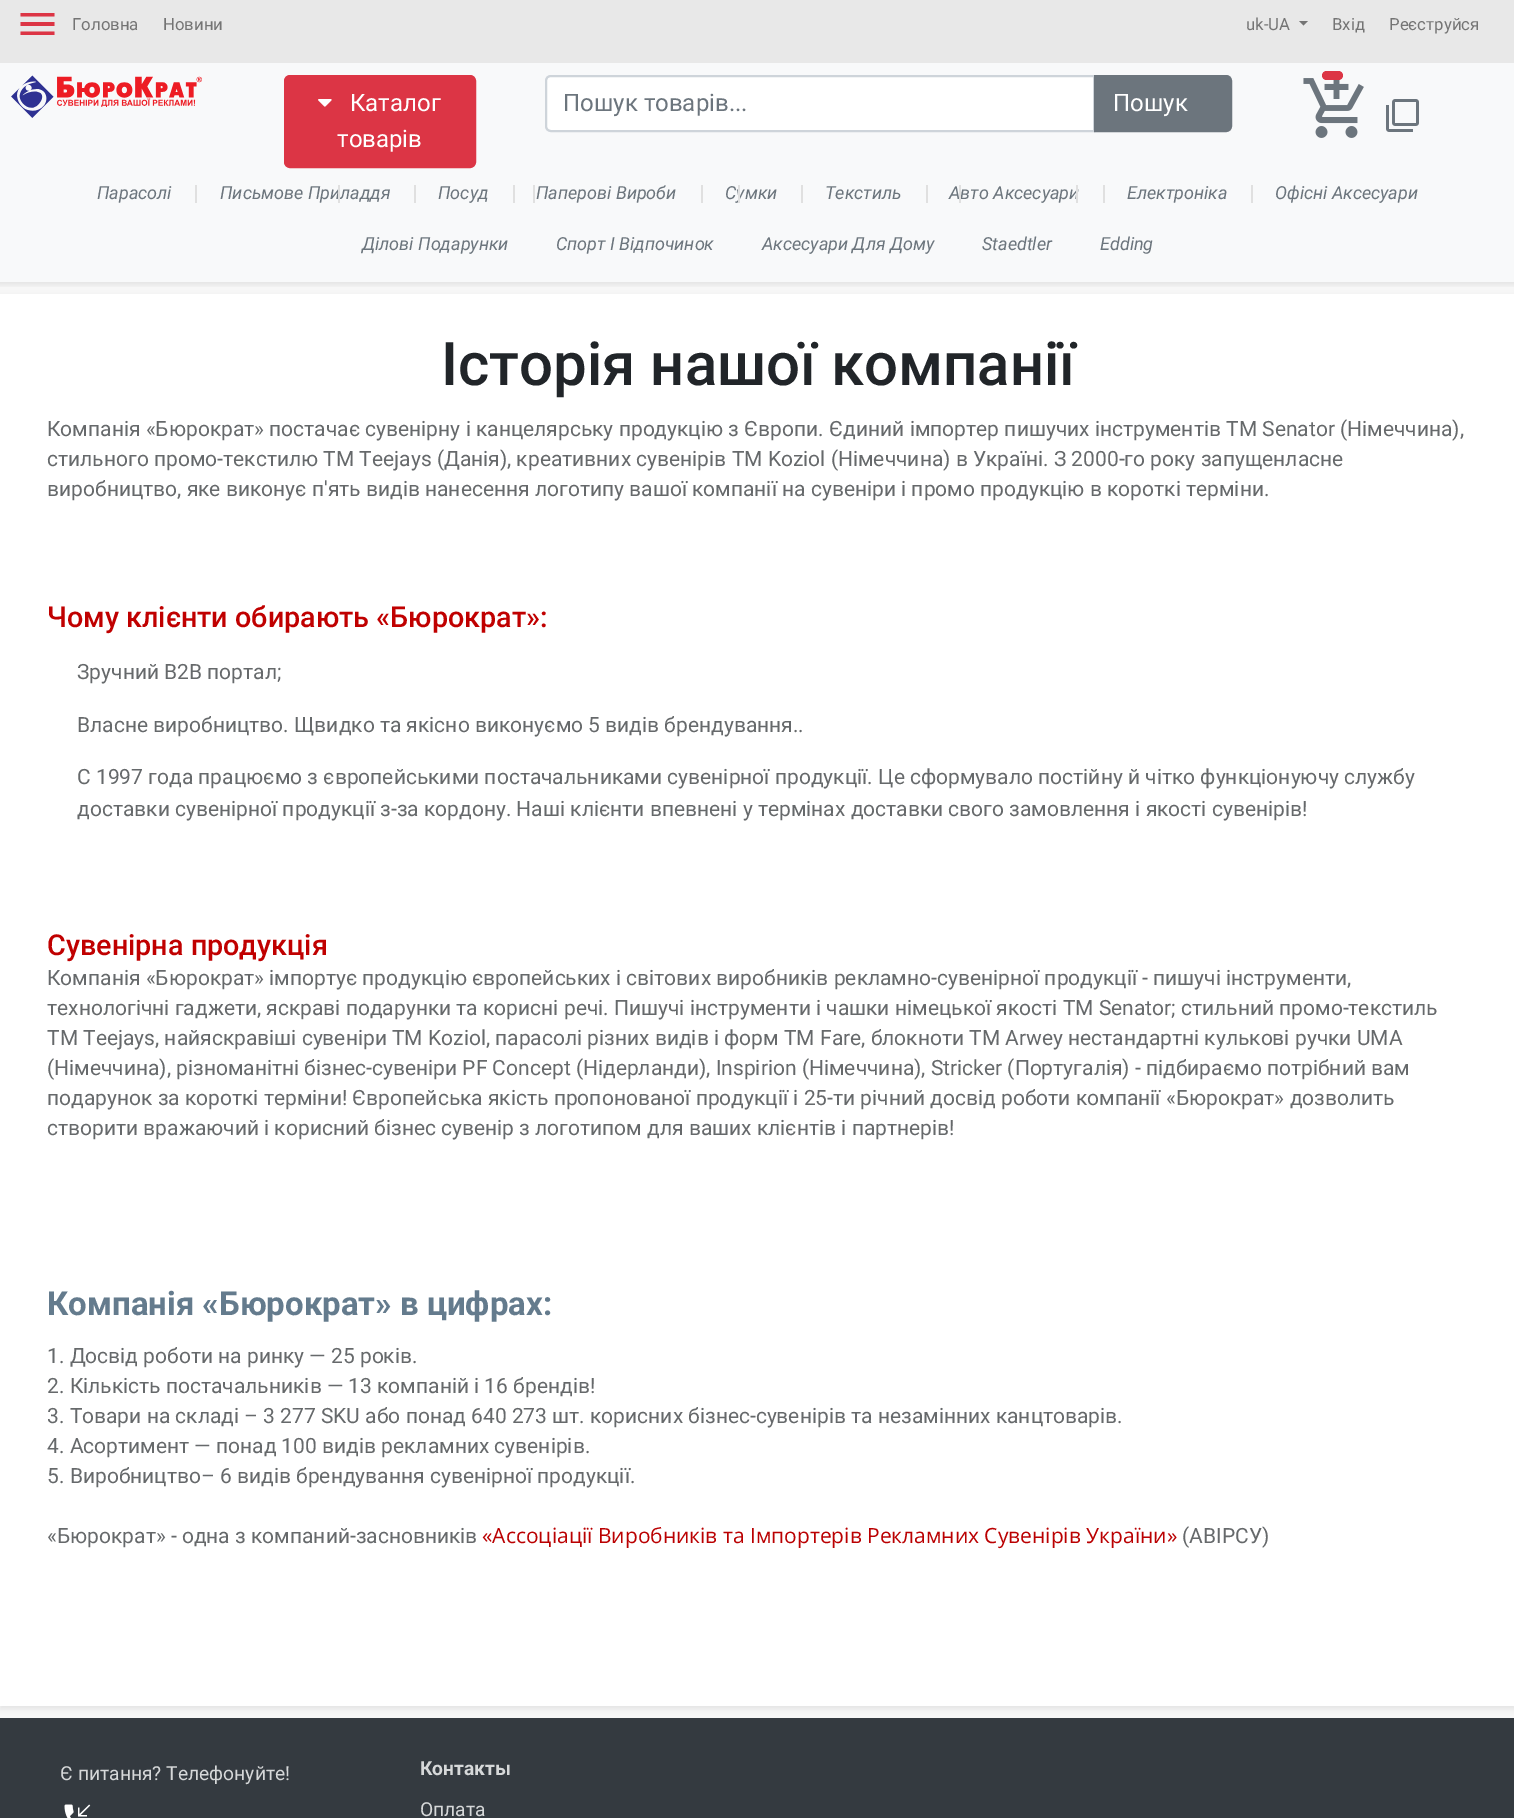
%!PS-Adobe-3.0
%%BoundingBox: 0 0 1514 1818
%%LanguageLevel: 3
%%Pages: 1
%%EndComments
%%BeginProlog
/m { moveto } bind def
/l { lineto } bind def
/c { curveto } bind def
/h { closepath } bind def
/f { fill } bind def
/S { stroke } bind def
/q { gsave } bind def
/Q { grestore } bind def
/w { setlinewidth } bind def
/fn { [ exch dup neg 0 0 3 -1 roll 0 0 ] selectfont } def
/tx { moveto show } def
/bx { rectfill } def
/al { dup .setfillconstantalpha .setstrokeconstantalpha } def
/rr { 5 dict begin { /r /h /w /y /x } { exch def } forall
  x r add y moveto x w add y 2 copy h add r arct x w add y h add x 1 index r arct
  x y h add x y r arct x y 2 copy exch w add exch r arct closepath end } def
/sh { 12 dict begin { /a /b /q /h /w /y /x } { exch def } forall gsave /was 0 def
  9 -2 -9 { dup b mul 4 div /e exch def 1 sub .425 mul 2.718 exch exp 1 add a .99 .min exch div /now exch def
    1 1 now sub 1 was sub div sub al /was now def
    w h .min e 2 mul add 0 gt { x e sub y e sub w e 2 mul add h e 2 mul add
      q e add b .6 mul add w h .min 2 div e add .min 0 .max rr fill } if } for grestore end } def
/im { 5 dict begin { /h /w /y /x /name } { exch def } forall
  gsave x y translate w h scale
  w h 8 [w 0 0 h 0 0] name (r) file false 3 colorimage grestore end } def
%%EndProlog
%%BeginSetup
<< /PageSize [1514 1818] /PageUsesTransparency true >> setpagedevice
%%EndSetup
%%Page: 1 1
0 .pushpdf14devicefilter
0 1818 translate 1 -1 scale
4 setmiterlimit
0.969 setgray
0 0 1514 1818 bx
0.973 0.976 0.98 setrgbcolor
0 63 1514 219 bx
q
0 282 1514 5 rectclip
0 setgray
-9 66 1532 219 0 3 0.07 sh
Q
0.91 setgray
0 0 1514 63 bx
0.863 0.208 0.271 setrgbcolor
20.5 13 m 54.5 13 l 54.5 16.5 l 20.5 16.5 l h 20.5 26 m 20.5 22 l 54.5 22 l 54.5 26 l h 20.5 35 m 20.5 31.5 l 54.5 31.5 l 54.5 35 l h f
/Roboto-Regular 16.75 fn
0.455 setgray
(Головна) 72 30 tx
(Новини) 163 30 tx
(uk-UA) 1246 30 tx
1299 21 m 1308 21 l 1303.5 25.5 l h f
(Вхід) 1332 30 tx
(Реєструйся) 1389 30 tx
(image0.raw) 11 75 191 43 im
0.863 0.208 0.271 setrgbcolor
285 76 190 91 5 rr q f Q
2 w
S
(image1.raw) 318 99 14 8 im
/Roboto-Regular 24 fn
1 setgray
(Каталог) 350 111 tx
(товарів) 337 147 tx
551 76 m 1094 76 l 1094 131 l 551 131 l 548 131 546 129 546 126 c 546 81 l 546 78 548 76 551 76 c h q f Q
0.808 0.831 0.855 setrgbcolor
S
0.424 0.459 0.49 setrgbcolor
(Пошук товарів...) 563 111 tx
1095 76 m 1226 76 l 1229 76 1231 78 1231 81 c 1231 126 l 1231 129 1229 131 1226 131 c 1095 131 l h q f Q
S
1 setgray
(Пошук) 1113 111 tx
(image2.raw) 1303 78 61 60 im
0.863 0.208 0.271 setrgbcolor
1322 71 21 9 4.5 rr f
(image3.raw) 1386 99 33 33 im
/Roboto-Italic 18 fn
0.424 0.459 0.49 setrgbcolor
(Парасолі) 97 199 tx
0.878 setgray
195 185 2 18 bx
0.424 0.459 0.49 setrgbcolor
(Письмове Приладдя) 220 199 tx
0.878 setgray
414 185 2 18 bx
0.424 0.459 0.49 setrgbcolor
(Посуд) 438 199 tx
0.878 setgray
513 185 2 18 bx
0.424 0.459 0.49 setrgbcolor
(Паперові Вироби) 536 199 tx
0.878 setgray
701 185 2 18 bx
0.424 0.459 0.49 setrgbcolor
(Сумки) 725 199 tx
0.878 setgray
801 185 2 18 bx
0.424 0.459 0.49 setrgbcolor
(Текстиль) 825 199 tx
0.878 setgray
926 185 2 18 bx
0.424 0.459 0.49 setrgbcolor
(Авто Аксесуари) 949 199 tx
0.878 setgray
1103 185 2 18 bx
0.424 0.459 0.49 setrgbcolor
(Електроніка) 1127 199 tx
0.878 setgray
1251 185 2 18 bx
0.424 0.459 0.49 setrgbcolor
(Офісні Аксесуари) 1275 199 tx
0.878 setgray
338 185 2 18 bx
0.424 0.459 0.49 setrgbcolor
(Ділові Подарунки) 362 250 tx
0.878 setgray
533 185 2 18 bx
0.424 0.459 0.49 setrgbcolor
(Спорт І Відпочинок) 556 250 tx
0.878 setgray
738 185 2 18 bx
0.424 0.459 0.49 setrgbcolor
(Аксесуари Для Дому) 762 250 tx
0.878 setgray
959 185 2 18 bx
0.424 0.459 0.49 setrgbcolor
(Staedtler) 982 250 tx
0.878 setgray
1076 185 2 18 bx
0.424 0.459 0.49 setrgbcolor
(Edding) 1100 250 tx
0 setgray
0 297 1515 1412 0 3 0.07 sh
1 setgray
0 294 1514 1412 bx
/Roboto-Medium 60 fn
0.129 0.145 0.161 setrgbcolor
(Історія нашої компанії) 441 385 tx
/Roboto-Regular 21 fn
0.4 0.412 0.42 setrgbcolor
(Компанія «Бюрократ» постачає сувенірну і канцелярську продукцію з Європи. Єдиний імпортер пишучих інструментів ТМ Senator \(Німеччина\),) 47 436 tx
(стильного промо-текстилю ТМ Teejays \(Данія\), креативних сувенірів ТМ Koziol \(Німеччина\) в Україні. З 2000-го року запущенласне) 47 466 tx
(виробництво, яке виконує п'ять видів нанесення логотипу вашої компанії на сувеніри і промо продукцію в короткі терміни.) 47 496 tx
/Roboto-Medium 28.75 fn
0.753 0 0 setrgbcolor
(Чому клієнти обирають «Бюрократ»:) 47 627 tx
/Roboto-Regular 21 fn
0.4 0.412 0.42 setrgbcolor
(Зручний В2В портал;) 77 679 tx
(Власне виробництво. Щвидко та якісно виконуємо 5 видів брендування..) 77 732 tx
(С 1997 года працюємо з європейськими постачальниками сувенірної продукції. Це сформувало постійну й чітко функціонуючу службу) 77 784 tx
(доставки сувенірної продукції з-за кордону. Наші клієнти впевнені у термінах доставки свого замовлення і якості сувенірів!) 77 816 tx
/Roboto-Medium 28.75 fn
0.753 0 0 setrgbcolor
(Сувенірна продукція) 47 955 tx
/Roboto-Regular 21 fn
0.4 0.412 0.42 setrgbcolor
(Компанія «Бюрократ» імпортує продукцію європейських і світових виробників рекламно-сувенірної продукції - пишучі інструменти,) 47 985 tx
(технологічні гаджети, яскраві подарунки та корисні речі. Пишучі інструменти і чашки німецької якості ТМ Senator; стильний промо-текстиль) 47 1015 tx
(ТМ Teejays, найяскравіші сувеніри ТМ Koziol, парасолі різних видів і форм ТМ Fare, блокноти ТМ Arwey нестандартні кулькові ручки UMA) 47 1045 tx
(\(Німеччина\), різноманітні бізнес-сувеніри PF Concept \(Нідерланди\), Inspirion \(Німеччина\), Stricker \(Португалія\) - підбираємо потрібний вам) 47 1075 tx
(подарунок за короткі терміни! Європейська якість пропонованої продукції і 25-ти річний досвід роботи компанії «Бюрократ» дозволить) 47 1105 tx
(створити вражаючий і корисний бізнес сувенір з логотипом для ваших клієнтів і партнерів!) 47 1135 tx
/Roboto-Bold 33 fn
0.392 0.482 0.553 setrgbcolor
(Компанія «Бюрократ» в цифрах:) 47 1315 tx
/Roboto-Regular 21 fn
0.4 0.412 0.42 setrgbcolor
(1. Досвід роботи на ринку — 25 років.) 47 1363 tx
(2. Кількість постачальників — 13 компаній і 16 брендів!) 47 1393 tx
(3. Товари на складі – 3 277 SKU або понад 640 273 шт. корисних бізнес-сувенірів та незамінних канцтоварів.) 47 1423 tx
(4. Асортимент — понад 100 видів рекламних сувенірів.) 47 1453 tx
(5. Виробництво– 6 видів брендування сувенірної продукції.) 47 1483 tx
(«Бюрократ» - одна з компаний-засновників) 47 1543 tx
/OpenSans-Regular 21 fn
0.729 0 0.004 setrgbcolor
(«Ассоціації Виробників та Імпортерів Рекламних Сувенірів України») 482 1543 tx
/Roboto-Regular 21 fn
0.4 0.412 0.42 setrgbcolor
(\(АВІРСУ\)) 1182 1543 tx
0.204 0.227 0.251 setrgbcolor
0 1718 1514 100 bx
/Roboto-Regular 19.25 fn
0.839 0.847 0.851 setrgbcolor
(Є питання? Телефонуйте!) 60 1780 tx
(image4.raw) 64 1804 27 14 im
/Roboto-Bold 19.25 fn
(Контакты) 420 1775 tx
/Roboto-Regular 19.25 fn
(Оплата) 420 1816 tx
.poppdf14devicefilter showpage
%%EOF
